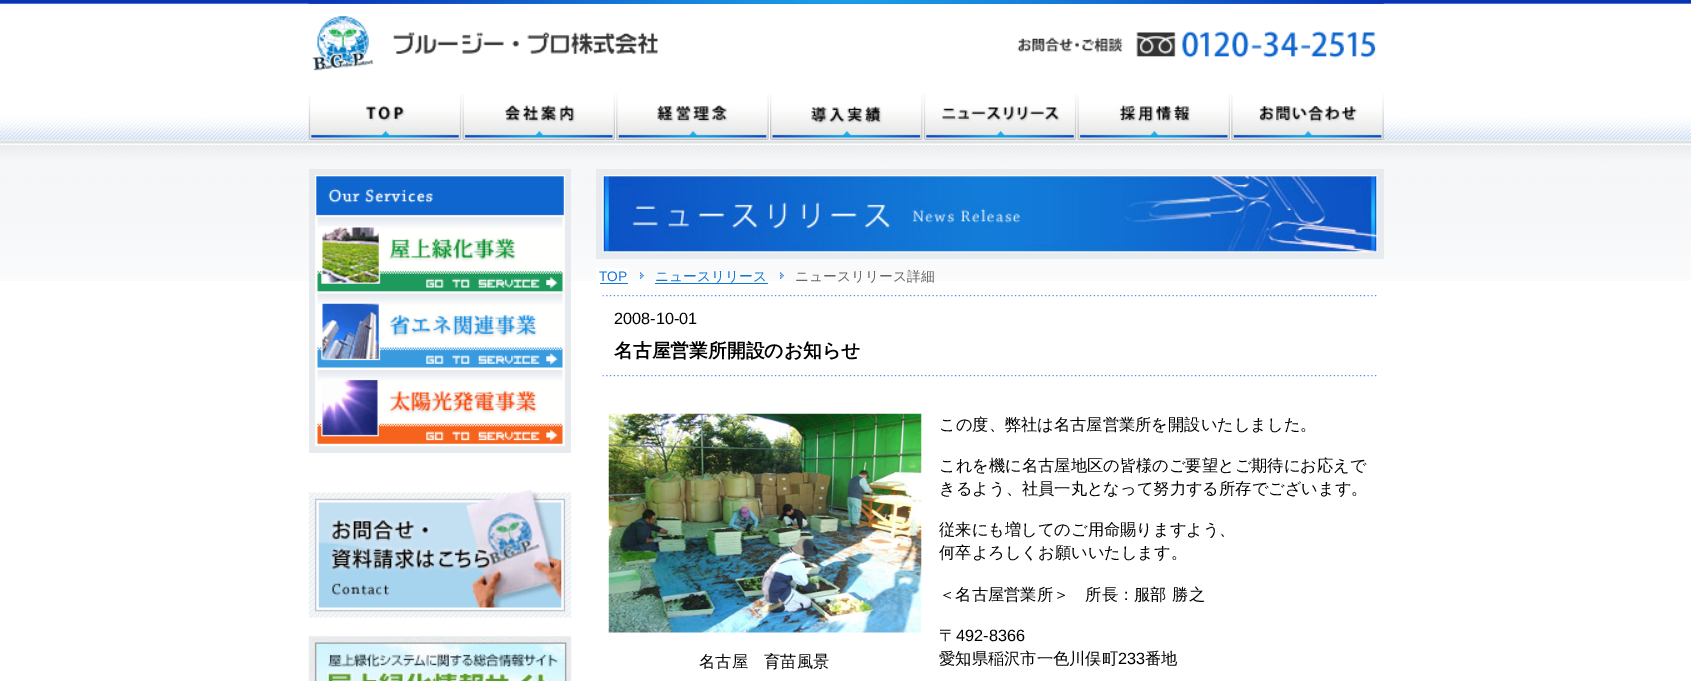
%!PS-Adobe-3.0
%%BoundingBox: 0 0 1691 681
%%LanguageLevel: 3
%%Pages: 1
%%EndComments
%%BeginProlog
/m { moveto } bind def
/fn { [ exch dup neg 0 0 3 -1 roll 0 0 ] selectfont } def
/tx { moveto show } def
/bx { rectfill } def
/im { 5 dict begin { /h /w /y /x /name } { exch def } forall
  gsave x y translate w h scale
  w h 8 [w 0 0 h 0 0] name (r) file false 3 colorimage grestore end } def
%%EndProlog
%%BeginSetup
<< /PageSize [1691 681] >> setpagedevice
%%EndSetup
%%Page: 1 1
0 681 translate 1 -1 scale
4 setmiterlimit
1 setgray
0 0 1691 681 bx
(image0.raw) 0 0 1691 281 im
(image1.raw) 308 0 1076 4 im
(image2.raw) 312 16 346 55 im
(image3.raw) 1017 31 359 27 im
(image4.raw) 308 94 155 46 im
(image5.raw) 462 94 155 46 im
(image6.raw) 616 94 154 46 im
(image7.raw) 770 93 154 47 im
(image8.raw) 923 94 155 46 im
(image9.raw) 1077 94 155 46 im
(image10.raw) 1231 94 153 46 im
0.91 0.922 0.929 setrgbcolor
309 169 262 284 bx
(image11.raw) 315 175 250 43 im
(image12.raw) 315 217 250 77 im
(image13.raw) 315 293 250 77 im
(image14.raw) 315 370 250 77 im
(image15.raw) 308 490 264 128 im
(image16.raw) 308 636 264 45 im
596 169 788 90 bx
(image17.raw) 602 175 776 78 im
1 setgray
596 268 32 13 bx
/LiberationSans-Regular 13.75 fn
0.067 0.459 0.827 setrgbcolor
(TOP) 599 281 tx
600 283 28 1 bx
(image18.raw) 640 272 4 7 im
/WenQuanYiZenHei-Medium 13.75 fn
(ニュースリリース) 655 281 tx
655 283 113 1 bx
(image19.raw) 780 272 4 7 im
0.4 setgray
(ニュースリリース詳細) 795 281 tx
(image20.raw) 602 295 775 2 im
(image20.raw) 602 375 775 2 im
/LiberationSans-Regular 16.25 fn
0 setgray
(2008-10-01) 614 324 tx
/WenQuanYiZenHei-Bold 18.8 fn
(名古屋営業所開設のお知らせ) 614 357 tx
(image21.raw) 608 413 314 220 im
/WenQuanYiZenHei-Medium 16.25 fn
(名古屋　育苗風景) 699 667 tx
(この度、弊社は名古屋営業所を開設いたしました。) 939 430 tx
(これを機に名古屋地区の皆様のご要望とご期待にお応えで) 939 471 tx
(きるよう、社員一丸となって努力する所存でございます。) 939 494 tx
(従来にも増してのご用命賜りますよう、) 939 535 tx
(何卒よろしくお願いいたします。) 939 558 tx
939 600 m 1 0 32 (＜名古屋営業所＞　所長：服部 勝之) widthshow
(〒) 939 641 tx
/LiberationSans-Regular 16.25 fn
(492-8366) 956 641 tx
/WenQuanYiZenHei-Medium 16.25 fn
(愛知県稲沢市一色川俣町) 939 664 tx
/LiberationSans-Regular 16.25 fn
(233) 1118 664 tx
/WenQuanYiZenHei-Medium 16.25 fn
(番地) 1145 664 tx
showpage
%%EOF
